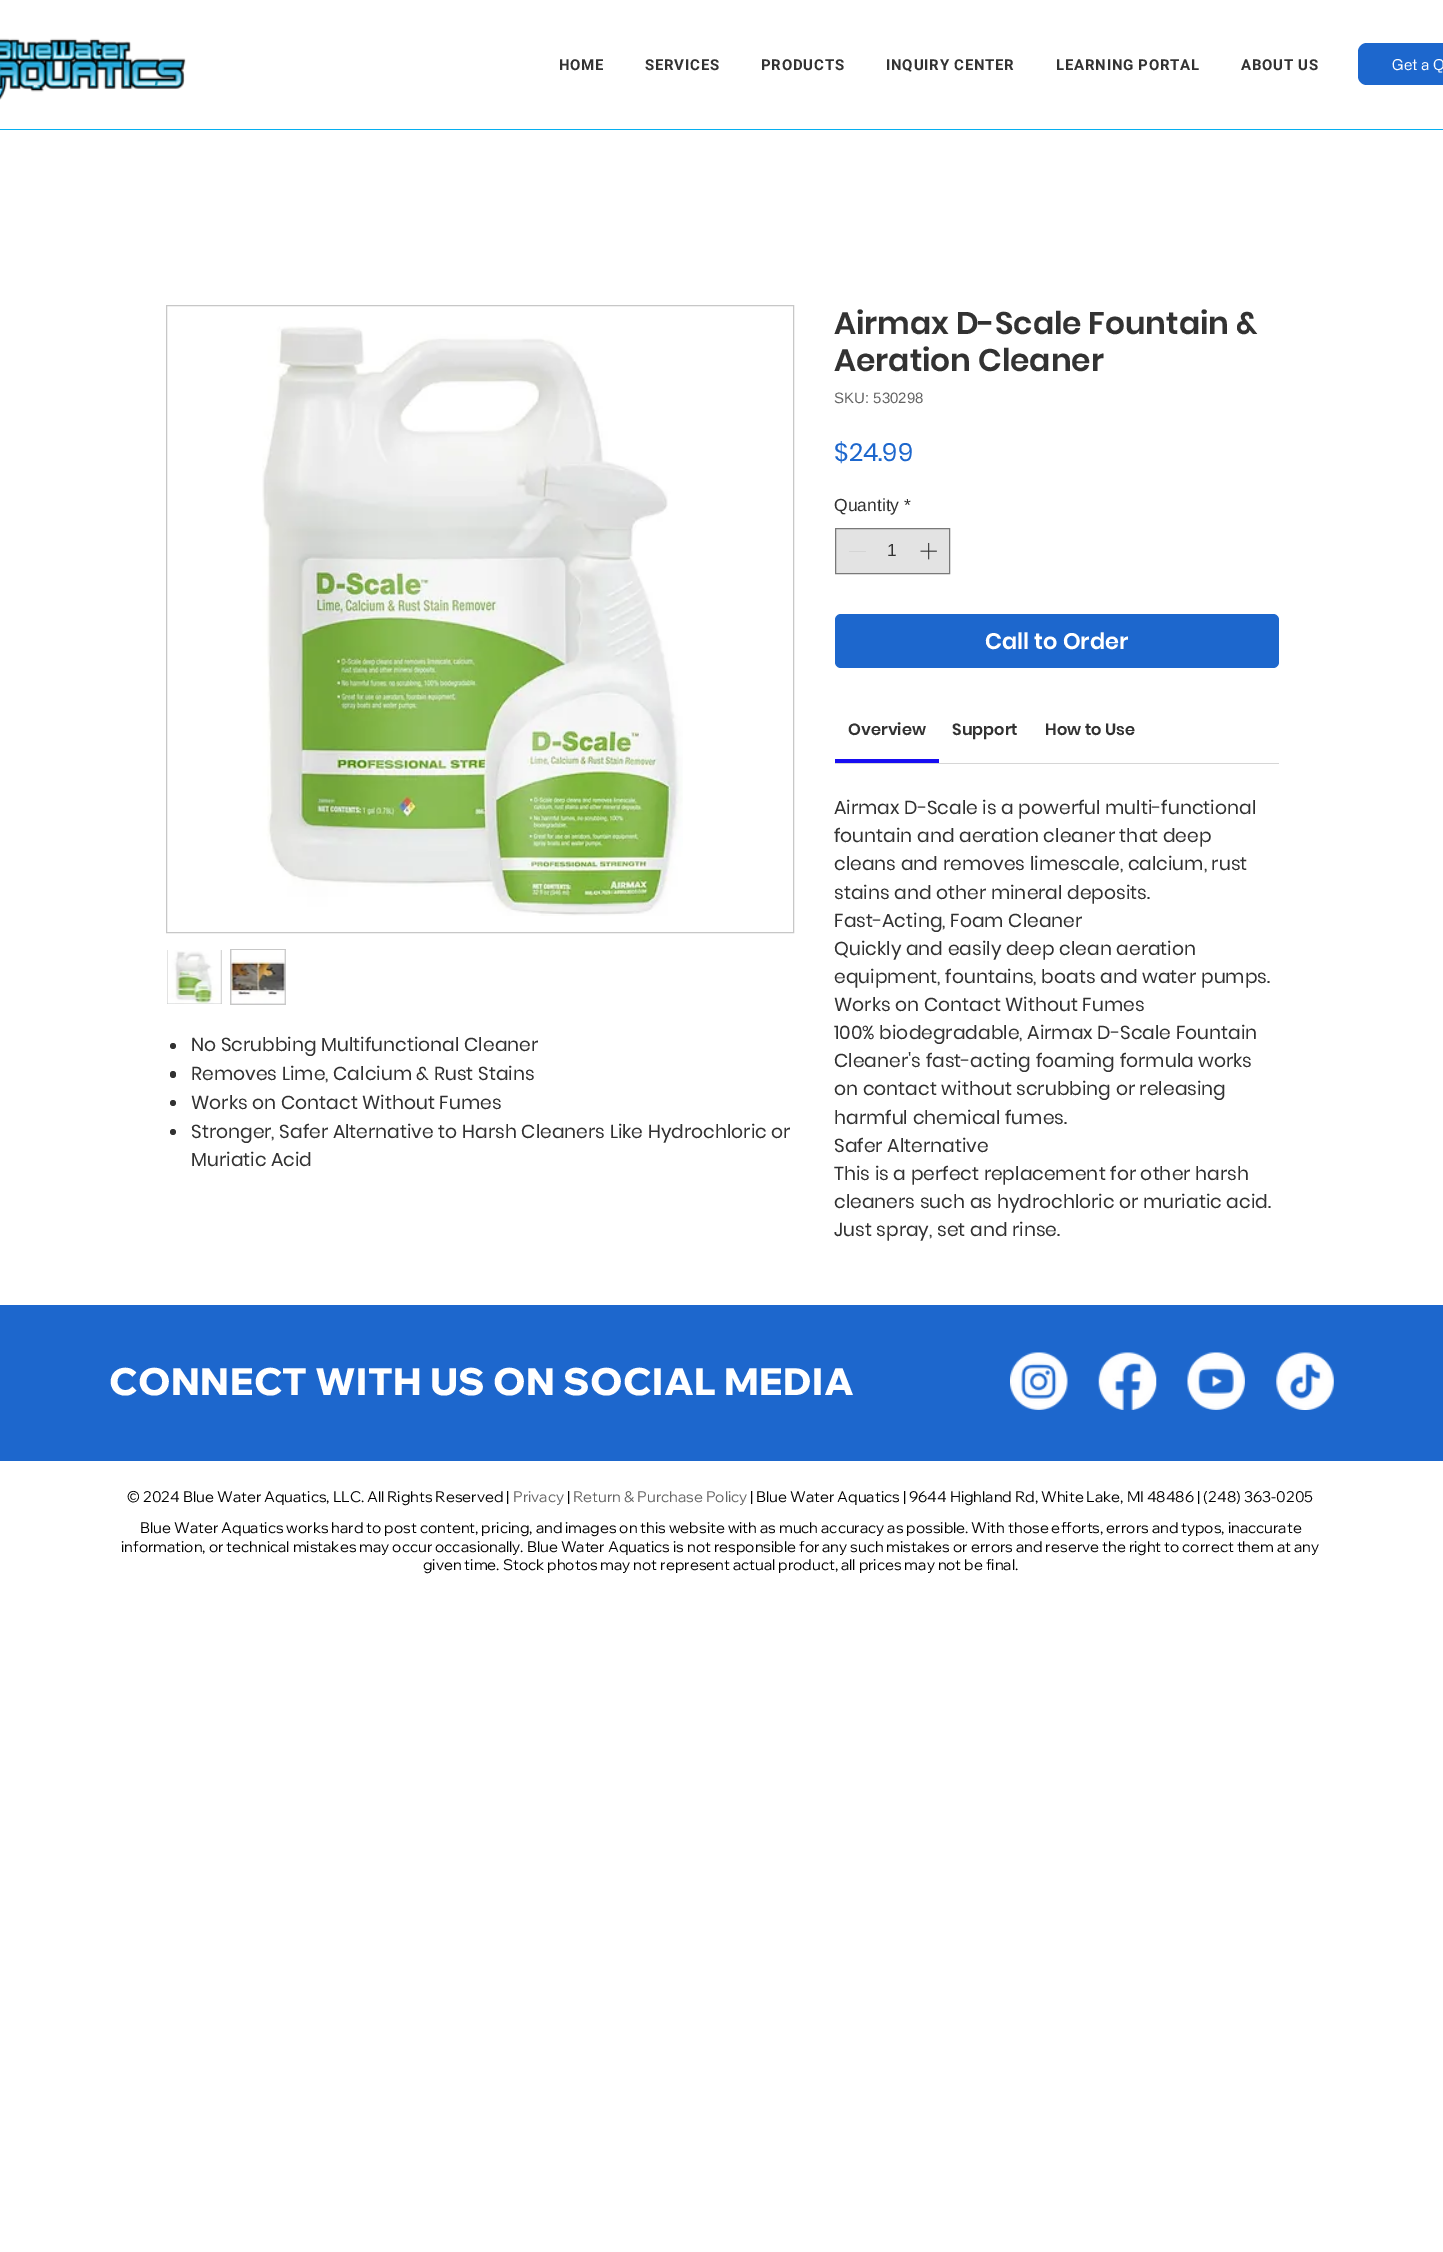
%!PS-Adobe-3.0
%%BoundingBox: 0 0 1443 2252
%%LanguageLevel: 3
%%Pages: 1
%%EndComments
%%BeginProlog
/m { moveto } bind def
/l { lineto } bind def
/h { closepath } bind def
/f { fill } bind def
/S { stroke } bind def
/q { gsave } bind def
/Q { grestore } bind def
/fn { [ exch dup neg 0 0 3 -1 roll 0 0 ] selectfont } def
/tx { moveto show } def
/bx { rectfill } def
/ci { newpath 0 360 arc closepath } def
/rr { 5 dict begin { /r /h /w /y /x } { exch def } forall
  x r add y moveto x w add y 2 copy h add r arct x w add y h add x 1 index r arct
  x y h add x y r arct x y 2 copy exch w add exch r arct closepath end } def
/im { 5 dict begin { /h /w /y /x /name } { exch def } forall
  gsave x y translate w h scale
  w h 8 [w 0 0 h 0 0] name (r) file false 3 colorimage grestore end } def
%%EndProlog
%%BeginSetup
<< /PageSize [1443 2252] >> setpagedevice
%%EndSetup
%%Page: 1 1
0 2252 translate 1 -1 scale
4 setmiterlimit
1 setgray
0 0 1443 2252 bx
(image0.raw) 0 38 186 62 im
/Roboto-Bold 15 fn
0.196 setgray
559 70 m 0.75 0 (HOME) ashow
645 70 m 0.75 0 (SERVICES) ashow
761 70 m 0.75 0 (PRODUCTS) ashow
886 70 m 0.75 0 (INQUIRY CENTER) ashow
1056 70 m 0.75 0 (LEARNING PORTAL) ashow
1241 70 m 0.75 0 (ABOUT US) ashow
0.114 0.404 0.804 setrgbcolor
1358 43 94 42 9 rr f
/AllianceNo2-Regular 15 fn
1 setgray
(Get a Q) 1392 70 tx
0.024 0.686 0.941 setrgbcolor
0 129 1443 1 bx
0.78 setgray
166.5 305.5 627 627 rectstroke
(image1.raw) 262 326 421 590 im
167 950 55 54 bx
(image2.raw) 167 950 55 54 im
230 949 56 56 bx
(image3.raw) 231 950 55 54 im
0.196 setgray
173 1046 3 ci f
/Poppins-Regular 18.75 fn
(No Scrubbing Multifunctional Cleaner) 191 1051 tx
170 1071 6 7 3 rr f
(Removes Lime, Calcium & Rust Stains) 191 1080 tx
173 1103 3 ci f
(Works on Contact Without Fumes) 191 1109 tx
173 1132 3 ci f
(Stronger, Safer Alternative to Harsh Cleaners Like Hydrochloric or) 191 1138 tx
(Muriatic Acid) 191 1166 tx
/Poppins-SemiBold 31.25 fn
(Airmax D-Scale Fountain &) 834 334 tx
(Aeration Cleaner) 834 371 tx
/LiberationSans-Regular 15 fn
0.392 setgray
(SKU: 530298) 834 403 tx
/Poppins-Regular 25 fn
0.114 0.404 0.804 setrgbcolor
($24.99) 834 461 tx
/LiberationSans-Regular 17.5 fn
0.196 setgray
(Quantity *) 834 511 tx
0.89 setgray
835.5 528.5 m 949.5 528.5 l 949.5 573.5 l 835.5 573.5 l h q f Q
0.475 setgray
S
0.835 setgray
849 551 17 1 bx
0.196 setgray
(1) 887 556 tx
(image4.raw) 920 542 17 18 im
0.114 0.404 0.804 setrgbcolor
835 614 444 54 6 rr f
/Poppins-SemiBold 22.5 fn
1 setgray
(Call to Order) 985 649 tx
0.839 setgray
835 763 444 1 bx
0.09 0.051 0.949 setrgbcolor
835 759 104 4 bx
/Poppins-SemiBold 16.25 fn
0.196 setgray
(Overview) 848 735 tx
(Support) 952 735 tx
(How to Use) 1045 735 tx
/Poppins-Regular 18.75 fn
(Airmax D-Scale is a powerful multi-functional) 834 814 tx
(fountain and aeration cleaner that deep) 834 842 tx
(cleans and removes limescale, calcium, rust) 834 870 tx
(stains and other mineral deposits.) 834 899 tx
(Fast-Acting, Foam Cleaner) 834 927 tx
(Quickly and easily deep clean aeration) 834 955 tx
(equipment, fountains, boats and water pumps.) 834 983 tx
(Works on Contact Without Fumes) 834 1011 tx
(100% biodegradable, Airmax D-Scale Fountain) 834 1039 tx
(Cleaner's fast-acting foaming formula works) 834 1067 tx
(on contact without scrubbing or releasing) 834 1095 tx
(harmful chemical fumes.) 834 1124 tx
(Safer Alternative) 834 1152 tx
(This is a perfect replacement for other harsh) 834 1180 tx
(cleaners such as hydrochloric or muriatic acid.) 834 1208 tx
(Just spray, set and rinse.) 834 1236 tx
0.114 0.404 0.804 setrgbcolor
0 1305 1443 156 bx
/WixMadeforDisplay-ExtraBold 37.5 fn
1 setgray
109 1395 m 0.4 0 (CONNECT WITH US ON SOCIAL MEDIA) ashow
(image5.raw) 1010 1352 58 58 im
(image6.raw) 1098 1352 59 58 im
(image7.raw) 1187 1352 58 58 im
(image8.raw) 1276 1352 58 58 im
/WixMadeforDisplay-Regular 15 fn
0 setgray
(© 2024 Blue Water Aquatics, LLC. All Rights Reserved |) 127 1502 tx
0.392 setgray
(Privacy) 513 1502 tx
0 setgray
(|) 567 1502 tx
0.392 setgray
(Return & Purchase Policy) 573 1502 tx
0 setgray
(| Blue Water Aquatics | 9644 Highland Rd, White Lake, MI 48486 | \(248\) 363-0205) 750 1502 tx
(Blue Water Aquatics works hard to post content, pricing, and images on this website with as much accuracy as possible. With those efforts, errors and typos, inaccurate) 140 1533 tx
(information, or technical mistakes may occur occasionally. Blue Water Aquatics is not responsible for any such mistakes or errors and reserve the right to correct them at any) 121 1552 tx
(given time. Stock photos may not represent actual product, all prices may not be final.) 423 1570 tx
showpage
%%EOF
